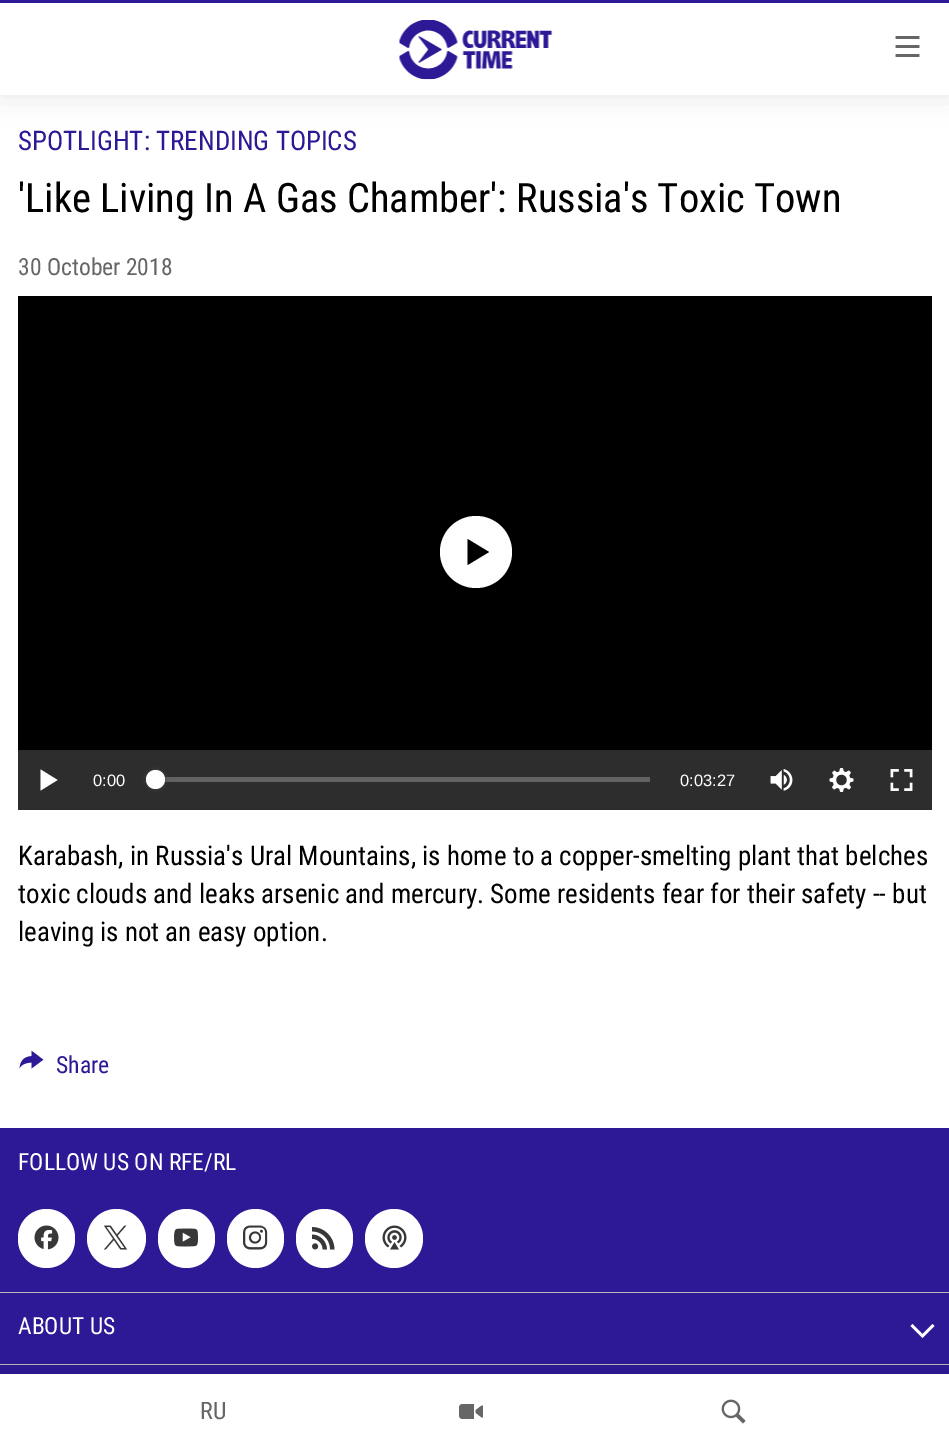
%!PS-Adobe-3.0
%%BoundingBox: 0 0 949 1449
%%LanguageLevel: 3
%%Pages: 1
%%EndComments
%%BeginProlog
/m { moveto } bind def
/l { lineto } bind def
/h { closepath } bind def
/f { fill } bind def
/fn { [ exch dup neg 0 0 3 -1 roll 0 0 ] selectfont } def
/tx { moveto show } def
/bx { rectfill } def
/al { dup .setfillconstantalpha .setstrokeconstantalpha } def
/ci { newpath 0 360 arc closepath } def
/rr { 5 dict begin { /r /h /w /y /x } { exch def } forall
  x r add y moveto x w add y 2 copy h add r arct x w add y h add x 1 index r arct
  x y h add x y r arct x y 2 copy exch w add exch r arct closepath end } def
/sh { 12 dict begin { /a /b /q /h /w /y /x } { exch def } forall gsave /was 0 def
  9 -2 -9 { dup b mul 4 div /e exch def 1 sub .425 mul 2.718 exch exp 1 add a .99 .min exch div /now exch def
    1 1 now sub 1 was sub div sub al /was now def
    w h .min e 2 mul add 0 gt { x e sub y e sub w e 2 mul add h e 2 mul add
      q e add b .6 mul add w h .min 2 div e add .min 0 .max rr fill } if } for grestore end } def
/im { 5 dict begin { /h /w /y /x /name } { exch def } forall
  gsave x y translate w h scale
  w h 8 [w 0 0 h 0 0] name (r) file false 3 colorimage grestore end } def
%%EndProlog
%%BeginSetup
<< /PageSize [949 1449] /PageUsesTransparency true >> setpagedevice
%%EndSetup
%%Page: 1 1
0 .pushpdf14devicefilter
0 1449 translate 1 -1 scale
4 setmiterlimit
1 setgray
0 0 949 1449 bx
/RobotoCondensed-Regular 27 fn
0.176 0.098 0.588 setrgbcolor
(SPOTLIGHT: TRENDING TOPICS) 18 150 tx
/RobotoCondensed-Regular 40.5 fn
0 setgray
('Like Living In A Gas Chamber': Russia's Toxic Town) 18 212 tx
/RobotoCondensed-Regular 23.6 fn
0.4 setgray
(30 October 2018) 18 275 tx
0 setgray
18 296 914 454 bx
1 setgray
476 552 36 ci f
0 setgray
467.5 565 m 489 552 l 467.5 539 l h f
0.176 setgray
18 750 914 60 bx
1 setgray
40.5 790.5 m 57.5 780 l 40.5 769.5 l h f
/LiberationSans-Regular 16.5 fn
(0:00) 93 786 tx
0.384 setgray
164 777 486 5 bx
0.255 0.255 0.267 setrgbcolor
146 770 19 19 9.5 2 1 sh
1 setgray
155.5 779.5 9.5 ci f
(0:03:27) 680 786 tx
(image0.raw) 770 769 23 22 im
(image1.raw) 829 768 25 24 im
(image2.raw) 890 769 23 22 im
/RobotoCondensed-Regular 27 fn
0 setgray
(Karabash, in Russia's Ural Mountains, is home to a copper-smelting plant that belches) 18 865 tx
(toxic clouds and leaks arsenic and mercury. Some residents fear for their safety -- but) 18 903 tx
(leaving is not an easy option.) 18 941 tx
(image3.raw) 19 1050 25 19 im
/RobotoCondensed-Regular 23.6 fn
0.176 0.098 0.588 setrgbcolor
(Share) 56 1073 tx
0 1128 949 236 bx
1 setgray
(FOLLOW US ON RFE/RL) 18 1170 tx
18 1209 57 59 28.5 rr f
(image4.raw) 34 1225 25 25 im
116.5 1238.5 29.5 ci f
(image5.raw) 103 1225 25 25 im
158 1209 57 59 28.5 rr f
(image6.raw) 174 1228 24 19 im
227 1209 57 59 28.5 rr f
(image7.raw) 243 1225 25 25 im
296 1209 57 59 28.5 rr f
(image8.raw) 312 1227 23 23 im
365 1209 58 59 29 rr f
(image9.raw) 382 1225 25 25 im
0.729 setgray
0 1292 949 1 bx
1 setgray
(ABOUT US) 18 1334 tx
910.5 1326 m 922.5 1338 l 934.5 1326 l 932.5 1324 l 922.5 1334 l 912.5 1324 l h f
0.729 setgray
0 1364 949 1 bx
0.176 0.098 0.588 setrgbcolor
0 1365 949 9 bx
0 setgray
0 0 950 95 0 15 0.1 sh
1 setgray
0 3 949 92 bx
0.176 0.098 0.588 setrgbcolor
0 0 949 3 bx
(image10.raw) 399 20 154 60 im
(image11.raw) 895 36 25 21 im
0 setgray
0 1374 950 75 0 15 0.1 sh
1 setgray
0 1374 949 75 bx
/RobotoCondensed-Regular 24 fn
0.4 setgray
(RU) 200 1419 tx
(image12.raw) 459 1404 24 15 im
(image13.raw) 721 1399 25 25 im
.poppdf14devicefilter showpage
%%EOF
